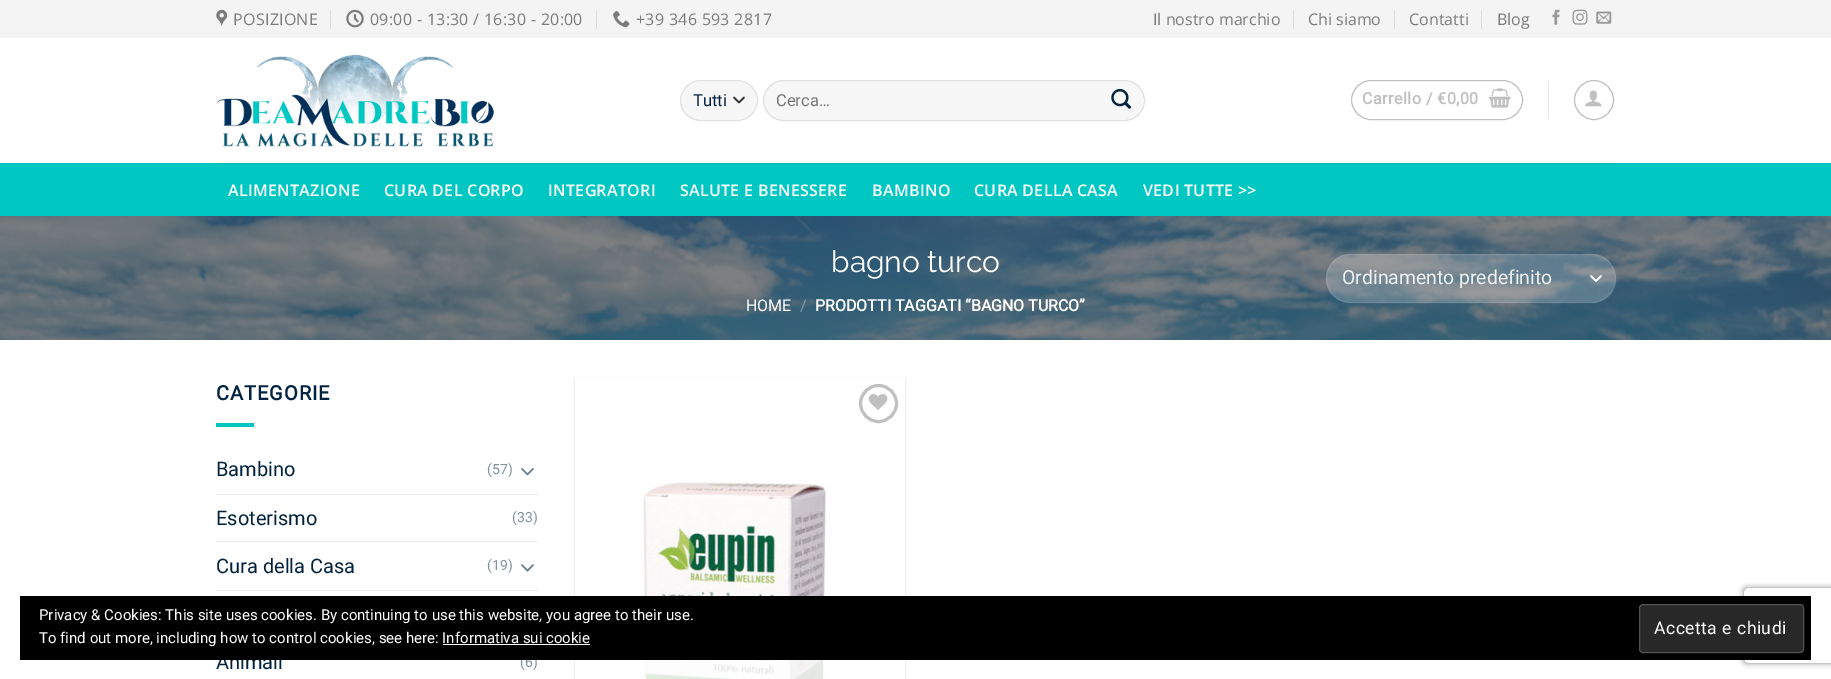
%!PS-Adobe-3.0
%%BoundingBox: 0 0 1831 679
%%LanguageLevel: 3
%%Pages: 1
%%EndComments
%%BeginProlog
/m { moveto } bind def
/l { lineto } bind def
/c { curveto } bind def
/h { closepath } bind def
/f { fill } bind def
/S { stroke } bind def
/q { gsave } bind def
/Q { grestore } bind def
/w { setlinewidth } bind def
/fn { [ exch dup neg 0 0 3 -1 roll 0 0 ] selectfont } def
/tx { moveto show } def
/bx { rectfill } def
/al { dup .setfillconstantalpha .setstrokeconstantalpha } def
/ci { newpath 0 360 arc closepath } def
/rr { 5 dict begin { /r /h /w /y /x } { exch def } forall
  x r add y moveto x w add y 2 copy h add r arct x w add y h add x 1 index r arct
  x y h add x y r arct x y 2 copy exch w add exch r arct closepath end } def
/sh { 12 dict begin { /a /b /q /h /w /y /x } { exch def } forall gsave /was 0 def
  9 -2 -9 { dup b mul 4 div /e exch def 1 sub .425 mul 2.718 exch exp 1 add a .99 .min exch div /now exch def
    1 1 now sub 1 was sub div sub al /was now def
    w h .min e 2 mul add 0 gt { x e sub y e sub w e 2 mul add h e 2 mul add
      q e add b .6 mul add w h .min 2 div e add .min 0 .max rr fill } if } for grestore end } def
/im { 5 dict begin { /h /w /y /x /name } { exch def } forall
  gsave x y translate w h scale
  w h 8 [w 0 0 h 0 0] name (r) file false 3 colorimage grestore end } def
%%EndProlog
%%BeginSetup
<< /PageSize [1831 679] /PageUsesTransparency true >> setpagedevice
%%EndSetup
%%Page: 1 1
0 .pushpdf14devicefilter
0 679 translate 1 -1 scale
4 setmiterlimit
1 setgray
0 0 1831 679 bx
0.957 setgray
0 0 1831 38 bx
(image0.raw) 216 9 12 18 im
/OpenSans-Regular 16 fn
0.482 setgray
233 25 m 0.3 0 (POSIZIONE) ashow
0.863 setgray
330 10 1 19 bx
(image1.raw) 346 9 18 19 im
0.482 setgray
370 25 m 0.3 0 (09:00 - 13:30 / 16:30 - 20:00) ashow
0.863 setgray
596 10 1 19 bx
(image2.raw) 613 11 17 17 im
0.482 setgray
636 25 m 0.3 0 (+39 346 593 2817) ashow
(Il nostro marchio) 1153 25 tx
0.863 setgray
1293 10 1 19 bx
0.482 setgray
(Chi siamo) 1308 25 tx
0.863 setgray
1394 10 1 19 bx
0.482 setgray
(Contatti) 1409 25 tx
0.863 setgray
1481 10 1 19 bx
0.482 setgray
(Blog) 1497 25 tx
(image3.raw) 1552 9 8 16 im
(image4.raw) 1572 9 16 16 im
(image5.raw) 1596 11 16 13 im
(image6.raw) 216 54 278 93 im
0.969 setgray
680 80 78 41 20.5 rr f
0.2 setgray
1.7 w
1 setlinecap
1 setlinejoin
734 97.5 m 739 102.5 l 744 97.5 l S
0.09 al
0 setgray
1 w
0 setlinecap
0 setlinejoin
680.5 80.5 77 40 20 rr S
/Roboto-Regular 16.5 fn
1 al
0.004 0.137 0.251 setrgbcolor
(Tutti) 693 106 tx
0.969 setgray
763 80 382 41 20.5 rr f
0.09 al
0 setgray
763.5 80.5 381 40 20 rr S
1 al
0.459 setgray
(Cerca…) 776 106 tx
(image7.raw) 1111 89 20 20 im
0.753 setgray
1351.5 80.5 171 39 19.5 rr S
/Roboto-Bold 16 fn
1362 104 m 0.5 0 (Carrello / €0,00) ashow
(image8.raw) 1488 88 23 20 im
0.902 setgray
1548 81 1 38 bx
0.753 setgray
1594 100 19.5 ci S
(image9.raw) 1585 90 17 17 im
0 0.78 0.761 setrgbcolor
0 163 1831 53 bx
0 0.718 0.71 setrgbcolor
216 163 1400 1 bx
/OpenSans-SemiBold 16 fn
1 setgray
228 196 m 0.3 0 (ALIMENTAZIONE) ashow
384 196 m 0.3 0 (CURA DEL CORPO) ashow
548 196 m 0.3 0 (INTEGRATORI) ashow
680 196 m 0.3 0 (SALUTE E BENESSERE) ashow
872 196 m 0.3 0 (BAMBINO) ashow
974 196 m 0.3 0 (CURA DELLA CASA) ashow
1143 196 m 0.3 0 (VEDI TUTTE >>) ashow
(image10.raw) 0 216 1831 124 im
/Raleway-Thin 30 fn
(bagno turco) 831 272 tx
/Roboto-Regular 16 fn
(HOME) 746 311 tx
0.51 0.6 0.651 setrgbcolor
(/) 800 311 tx
/Roboto-Bold 16 fn
1 setgray
(PRODOTTI TAGGATI “BAGNO TURCO”) 815 311 tx
0.2 al
1326 254 290 49 24.5 rr f
1 al
1.7 w
1 setlinecap
1 setlinejoin
1591 276 m 1596 281 l 1601 276 l S
0.09 al
1 w
0 setlinecap
0 setlinejoin
1326.5 254.5 289 48 24 rr S
/Roboto-Regular 19.4 fn
1 al
0.945 setgray
(Ordinamento predefinito) 1342 284 tx
/Roboto-Bold 20 fn
0.004 0.137 0.251 setrgbcolor
216 400 m 1 0 (CATEGORIE) ashow
0 0.78 0.761 setrgbcolor
216 423 38 4 bx
/Roboto-Regular 20 fn
0.004 0.137 0.251 setrgbcolor
(Bambino) 216 476 tx
/Roboto-Regular 14 fn
0.502 0.569 0.627 setrgbcolor
(\(57\)) 487 474 tx
(image11.raw) 521 468 13 8 im
0.925 setgray
216 494 322 1 bx
/Roboto-Regular 20 fn
0.004 0.137 0.251 setrgbcolor
(Esoterismo) 216 525 tx
/Roboto-Regular 14 fn
0.502 0.569 0.627 setrgbcolor
(\(33\)) 512 522 tx
0.925 setgray
216 541 322 1 bx
/Roboto-Regular 20 fn
0.004 0.137 0.251 setrgbcolor
(Cura della Casa) 216 573 tx
/Roboto-Regular 14 fn
0.502 0.569 0.627 setrgbcolor
(\(19\)) 487 570 tx
(image12.raw) 521 564 13 8 im
0.925 setgray
216 590 322 1 bx
/Roboto-Regular 20 fn
0.004 0.137 0.251 setrgbcolor
(Animali) 216 669 tx
/Roboto-Regular 14 fn
0.502 0.569 0.627 setrgbcolor
(\(6\)) 520 667 tx
q
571 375 m 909 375 l 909 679 l 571 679 l h 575 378 m 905 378 l 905 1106 l 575 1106 l h eoclip newpath
0 setgray
575 379 330 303 0 1 0.24 sh
Q
0.753 setgray
3 w
878.5 403.5 18 ci S
(image13.raw) 868 394 20 16 im
(image14.raw) 643 477 185 202 im
0.81 al
1 setgray
644 660 181 19 bx
q
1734 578 m 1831 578 l 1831 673 l 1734 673 l h 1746.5 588 m 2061.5 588 l 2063 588 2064 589 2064 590.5 c 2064 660.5 l 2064 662 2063 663 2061.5 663 c 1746.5 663 l 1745 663 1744 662 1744 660.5 c 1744 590.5 l 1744 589 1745 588 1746.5 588 c h eoclip newpath
1 al
0.502 setgray
1744 588 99 75 2.5 3 1 sh
Q
1 al
0 setgray
20 596 1791 64 bx
/Roboto-Regular 15 fn
1 setgray
(Privacy & Cookies: This site uses cookies. By continuing to use this website, you agree to their use.) 39 620 tx
0.157 setgray
1639.5 604.5 164 48 3.5 rr q f Q
0.325 setgray
1 w
S
/Roboto-Regular 17.5 fn
1 setgray
1654 634 m 0.5 0 (Accetta e chiudi) ashow
/Roboto-Regular 15 fn
(To find out more, including how to control cookies, see here: Informativa sui cookie) 39 643 tx
443 644 147 1 bx
.poppdf14devicefilter showpage
%%EOF
